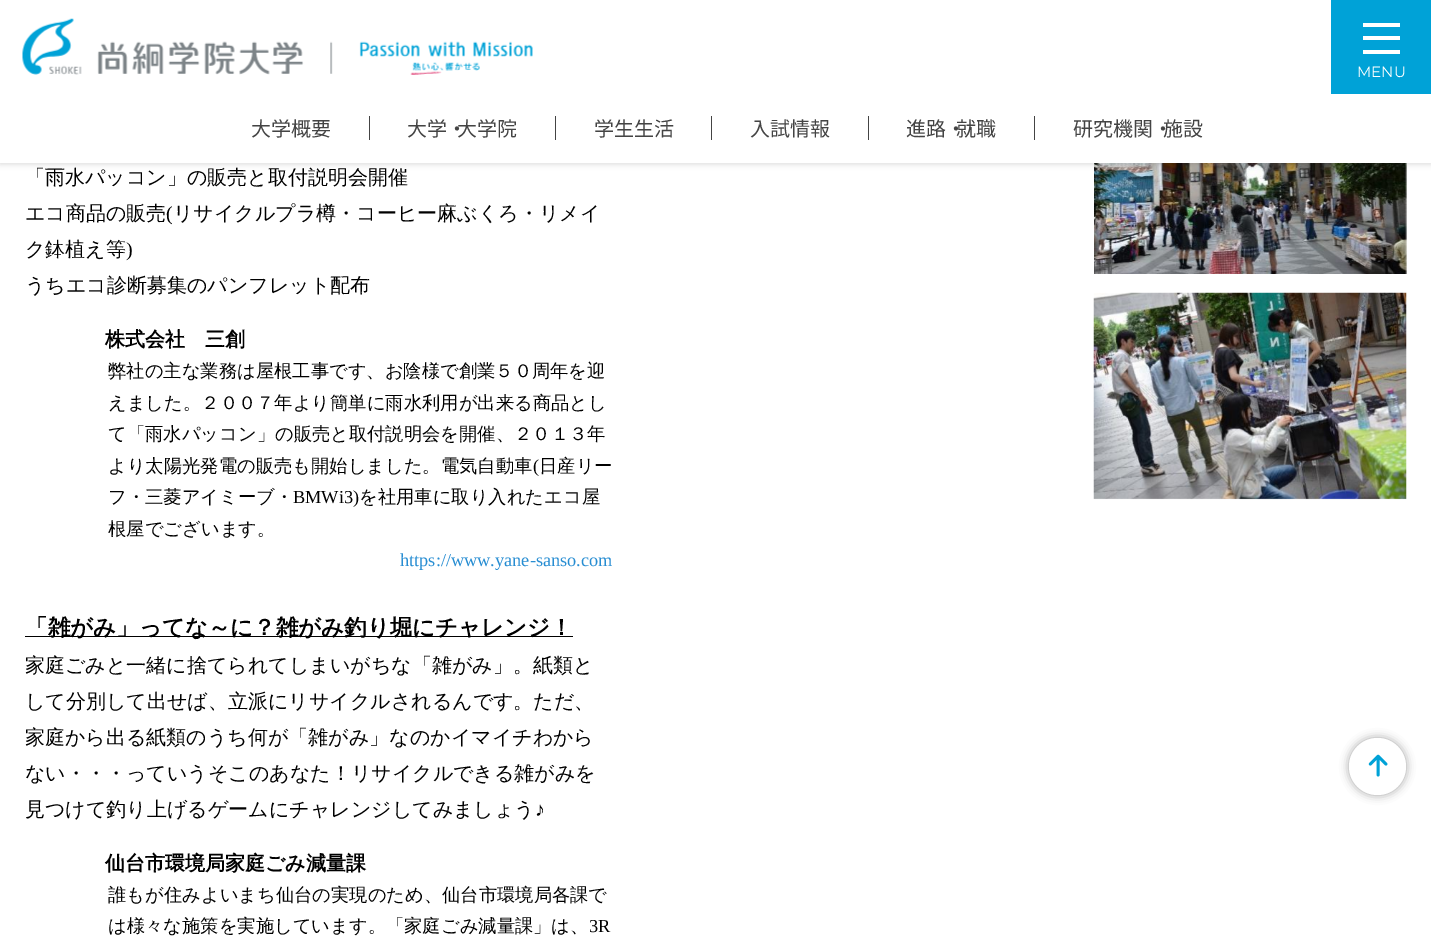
%!PS-Adobe-3.0
%%BoundingBox: 0 0 1431 945
%%LanguageLevel: 3
%%Pages: 1
%%EndComments
%%BeginProlog
/f { fill } bind def
/fn { [ exch dup neg 0 0 3 -1 roll 0 0 ] selectfont } def
/tx { moveto show } def
/bx { rectfill } def
/al { dup .setfillconstantalpha .setstrokeconstantalpha } def
/ci { newpath 0 360 arc closepath } def
/rr { 5 dict begin { /r /h /w /y /x } { exch def } forall
  x r add y moveto x w add y 2 copy h add r arct x w add y h add x 1 index r arct
  x y h add x y r arct x y 2 copy exch w add exch r arct closepath end } def
/sh { 12 dict begin { /a /b /q /h /w /y /x } { exch def } forall gsave /was 0 def
  9 -2 -9 { dup b mul 4 div /e exch def 1 sub .425 mul 2.718 exch exp 1 add a .99 .min exch div /now exch def
    1 1 now sub 1 was sub div sub al /was now def
    w h .min e 2 mul add 0 gt { x e sub y e sub w e 2 mul add h e 2 mul add
      q e add b .6 mul add w h .min 2 div e add .min 0 .max rr fill } if } for grestore end } def
/im { 5 dict begin { /h /w /y /x /name } { exch def } forall
  gsave x y translate w h scale
  w h 8 [w 0 0 h 0 0] name (r) file false 3 colorimage grestore end } def
%%EndProlog
%%BeginSetup
<< /PageSize [1431 945] /PageUsesTransparency true >> setpagedevice
%%EndSetup
%%Page: 1 1
0 .pushpdf14devicefilter
0 945 translate 1 -1 scale
4 setmiterlimit
1 setgray
0 0 1431 945 bx
(image1.raw) 1094 163 313 111 im
0 setgray
0 1 1431 163 0 3 0.15 sh
1 setgray
0 0 1431 163 bx
(image0.raw) 22 18 511 57 im
0 0.635 0.843 setrgbcolor
1331 0 100 94 bx
1 setgray
1363 23 37 4 bx
1363 36 37 4 bx
1363 50 37 4 bx
/Montserrat-Thin 15 fn
(MENU) 1357 77 tx
/NotoSansJP-Regular 20 fn
0.267 setgray
(大学概要) 251 136 tx
369 116 1 24 bx
(大学・) 407 136 tx
(大学院) 457 136 tx
555 116 1 24 bx
(学生生活) 594 136 tx
711 116 1 24 bx
(入試情報) 750 136 tx
868 116 1 24 bx
(進路・) 906 136 tx
(就職) 956 136 tx
1034 116 1 24 bx
(研究機関・) 1073 136 tx
(施設) 1163 136 tx
/WenQuanYiZenHei-Medium 20 fn
0 setgray
(「雨水パッコン」の販売と取付説明会開催) 25 184 tx
(エコ商品の販売) 25 220 tx
/LiberationSerif-Regular 20 fn
(\() 166 220 tx
/WenQuanYiZenHei-Medium 20 fn
(リサイクルプラ樽・コーヒー麻ぶくろ・リメイ) 173 220 tx
(ク鉢植え等) 25 256 tx
/LiberationSerif-Regular 20 fn
(\)) 126 256 tx
/WenQuanYiZenHei-Medium 20 fn
(うちエコ診断募集のパンフレット配布) 25 292 tx
/WenQuanYiZenHei-Bold 20 fn
(株式会社　三創) 105 346 tx
/WenQuanYiZenHei-Medium 18.3 fn
(弊社の主な業務は屋根工事です、お陰様で創業５０周年を迎) 108 377 tx
(えました。２００７年より簡単に雨水利用が出来る商品とし) 108 409 tx
(て「雨水パッコン」の販売と取付説明会を開催、２０１３年) 108 440 tx
(より太陽光発電の販売も開始しました。電気自動車) 108 472 tx
/LiberationSerif-Regular 18.3 fn
(\() 533 472 tx
/WenQuanYiZenHei-Medium 18.3 fn
(日産リー) 539 472 tx
(フ・三菱アイミーブ・) 108 503 tx
/LiberationSerif-Regular 18.3 fn
(BMWi3\)) 293 503 tx
/WenQuanYiZenHei-Medium 18.3 fn
(を社用車に取り入れたエコ屋) 359 503 tx
(根屋でございます。) 108 535 tx
/LiberationSerif-Regular 18.3 fn
0.153 0.553 0.824 setrgbcolor
(https://www.yane-sanso.com) 400 566 tx
0 setgray
25 636 548 1 bx
/WenQuanYiZenHei-Bold 22.5 fn
(「雑がみ」ってな～に？雑がみ釣り堀にチャレンジ！) 25 635 tx
/WenQuanYiZenHei-Medium 20 fn
(家庭ごみと一緒に捨てられてしまいがちな「雑がみ」。紙類と) 25 672 tx
(して分別して出せば、立派にリサイクルされるんです。ただ、) 25 708 tx
(家庭から出る紙類のうち何が「雑がみ」なのかイマイチわから) 25 744 tx
(ない・・・っていうそこのあなた！リサイクルできる雑がみを) 25 780 tx
(見つけて釣り上げるゲームにチャレンジしてみましょう) 25 816 tx
/LiberationSerif-Regular 20 fn
(♪) 535 816 tx
/WenQuanYiZenHei-Bold 20 fn
(仙台市環境局家庭ごみ減量課) 105 870 tx
/WenQuanYiZenHei-Medium 18.3 fn
(誰もが住みよいまち仙台の実現のため、仙台市環境局各課で) 108 901 tx
(は様々な施策を実施しています。「家庭ごみ減量課」は、) 108 932 tx
/LiberationSerif-Regular 18.3 fn
(3R) 589 932 tx
(image2.raw) 1093 292 314 208 im
1349 738 57 57 28.5 4.5 0.35 sh
1 setgray
1377.5 766.5 28.5 ci f
(image3.raw) 1368 754 20 23 im
.poppdf14devicefilter showpage
%%EOF
